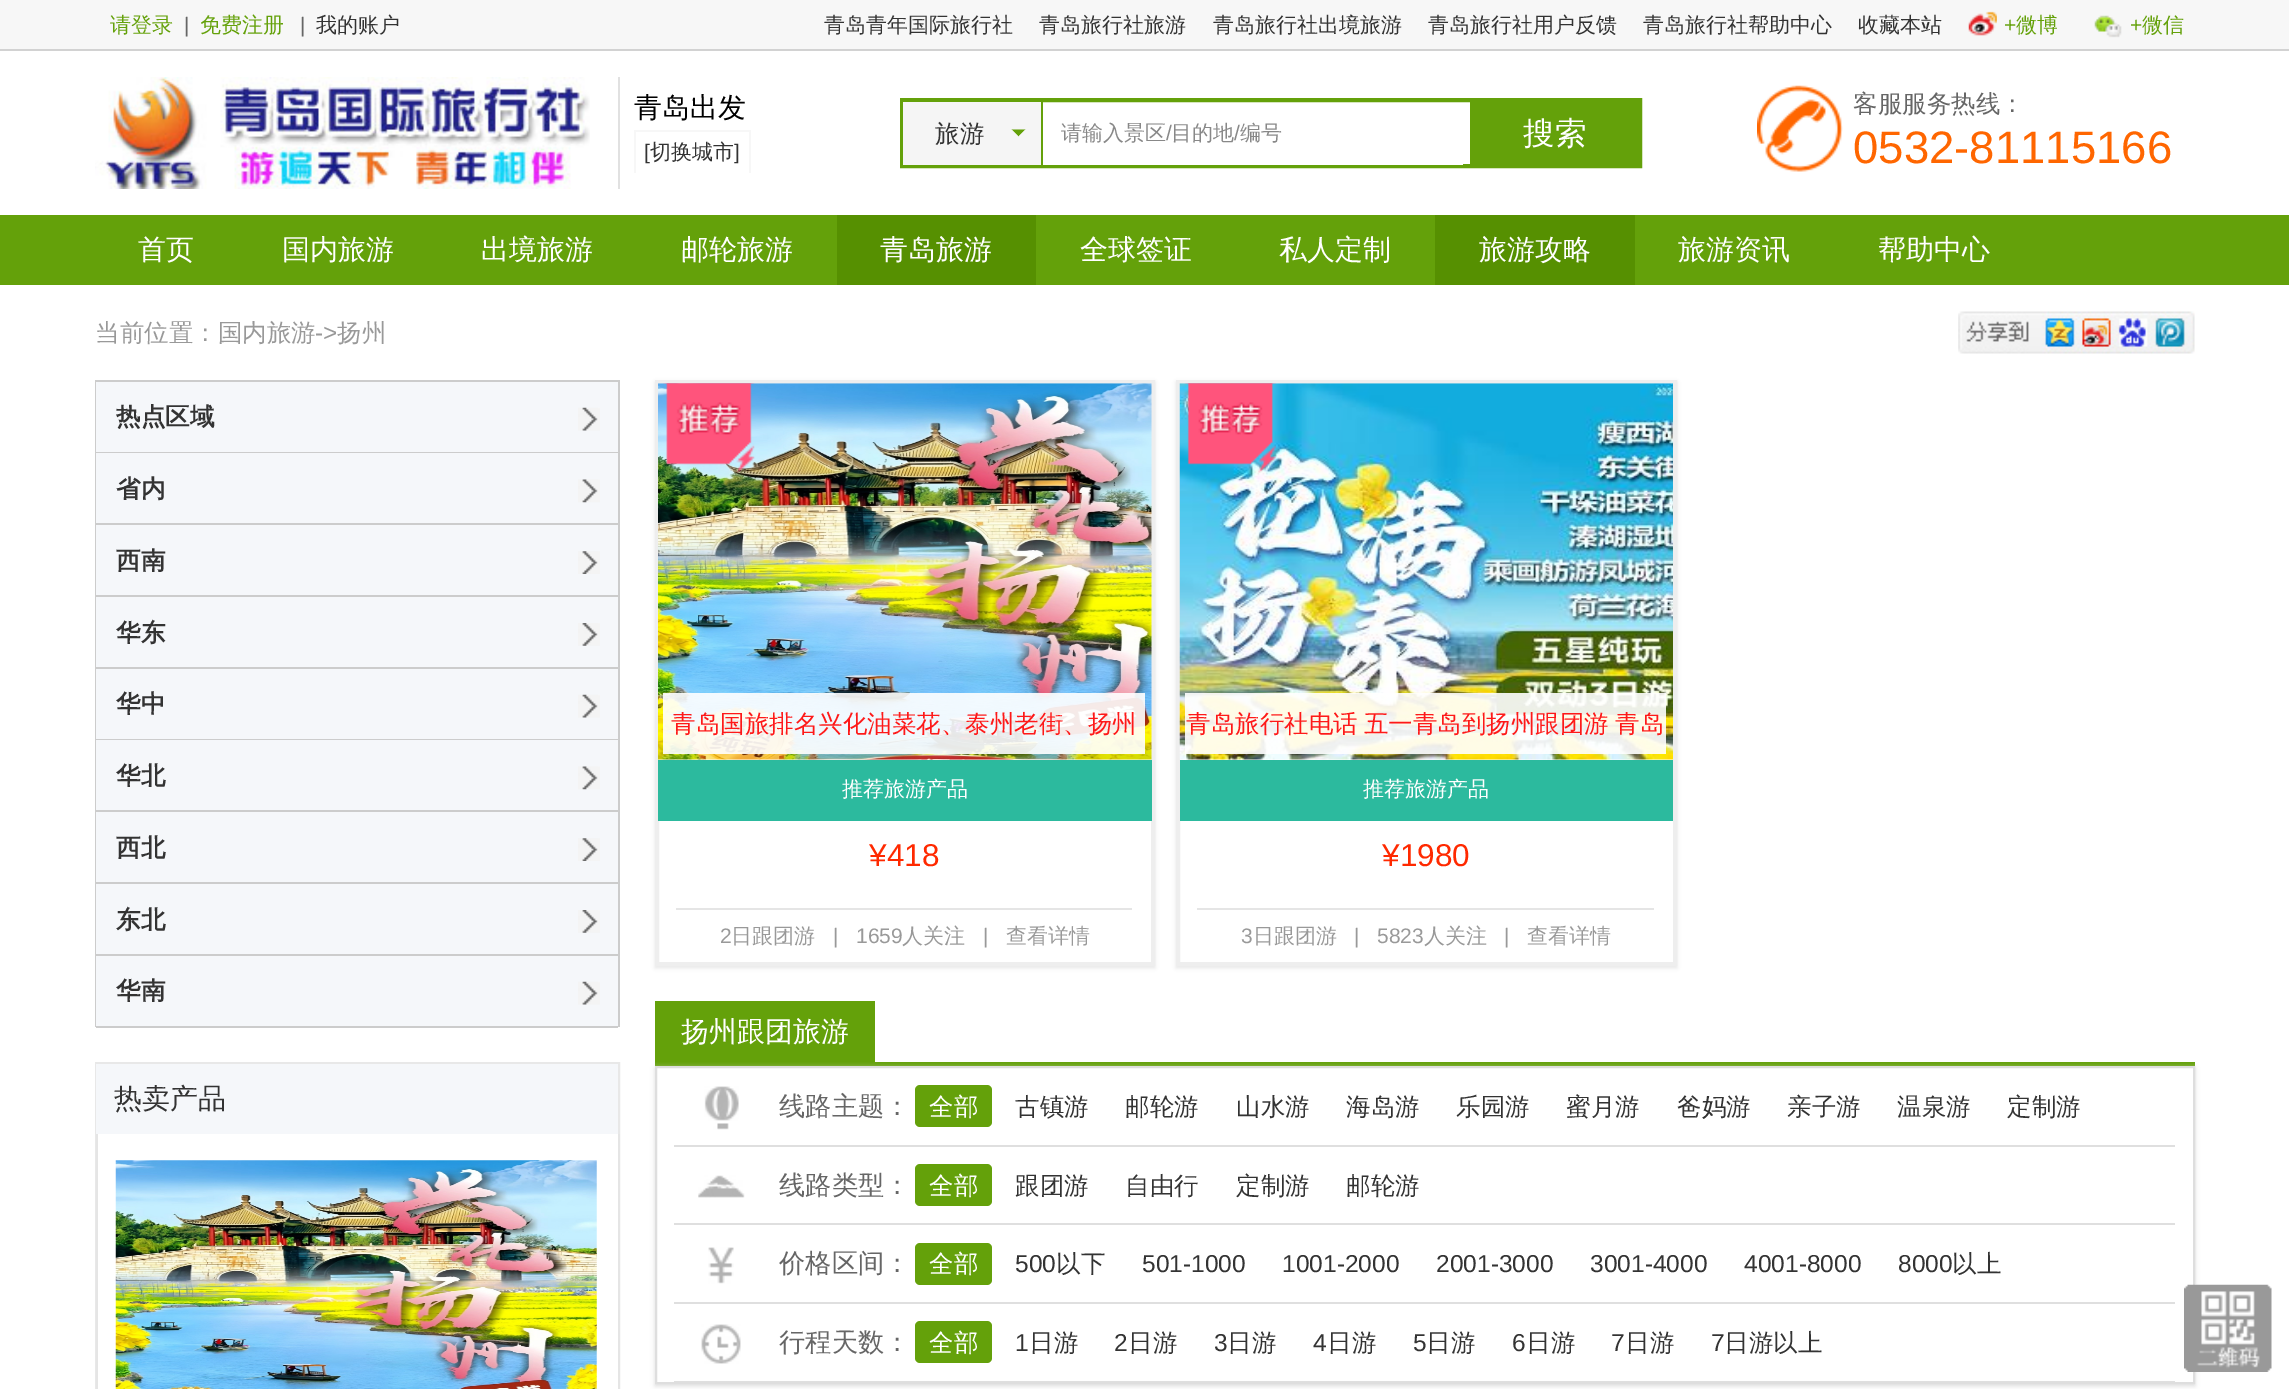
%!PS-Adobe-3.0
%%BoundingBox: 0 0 2289 1389
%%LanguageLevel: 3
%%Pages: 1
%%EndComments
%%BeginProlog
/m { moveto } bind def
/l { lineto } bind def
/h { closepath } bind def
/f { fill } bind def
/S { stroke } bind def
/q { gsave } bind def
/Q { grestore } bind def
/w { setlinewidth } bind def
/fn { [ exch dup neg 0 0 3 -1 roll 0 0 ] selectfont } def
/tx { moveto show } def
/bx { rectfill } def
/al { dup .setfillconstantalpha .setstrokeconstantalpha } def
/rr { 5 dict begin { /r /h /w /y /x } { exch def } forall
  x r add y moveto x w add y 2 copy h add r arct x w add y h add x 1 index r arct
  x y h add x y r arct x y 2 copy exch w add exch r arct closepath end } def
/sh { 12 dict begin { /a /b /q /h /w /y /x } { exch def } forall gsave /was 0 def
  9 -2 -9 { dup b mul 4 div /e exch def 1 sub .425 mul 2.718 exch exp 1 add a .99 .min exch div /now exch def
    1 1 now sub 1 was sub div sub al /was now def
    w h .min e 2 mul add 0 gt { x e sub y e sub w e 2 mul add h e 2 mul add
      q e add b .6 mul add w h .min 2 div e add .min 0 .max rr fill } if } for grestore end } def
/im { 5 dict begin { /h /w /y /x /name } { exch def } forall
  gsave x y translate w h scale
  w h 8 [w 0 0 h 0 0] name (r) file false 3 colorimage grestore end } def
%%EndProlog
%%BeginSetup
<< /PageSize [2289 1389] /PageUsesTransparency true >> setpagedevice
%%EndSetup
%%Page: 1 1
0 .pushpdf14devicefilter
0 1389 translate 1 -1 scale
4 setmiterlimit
1 setgray
0 0 2289 1389 bx
0.969 setgray
0 0 2289 49 bx
0.824 setgray
0 49 2289 2 bx
/WenQuanYiZenHei-Medium 21 fn
0.392 0.631 0.039 setrgbcolor
(请登录) 110 32 tx
/LiberationSans-Regular 21 fn
0.4 setgray
(|) 184 32 tx
/WenQuanYiZenHei-Medium 21 fn
0.392 0.631 0.039 setrgbcolor
(免费注册) 200 32 tx
/LiberationSans-Regular 21 fn
0.4 setgray
(|) 300 32 tx
/WenQuanYiZenHei-Medium 21 fn
0.2 setgray
(我的账户) 316 32 tx
(青岛青年国际旅行社) 824 32 tx
(青岛旅行社旅游) 1039 32 tx
(青岛旅行社出境旅游) 1213 32 tx
(青岛旅行社用户反馈) 1428 32 tx
(青岛旅行社帮助中心) 1643 32 tx
(收藏本站) 1858 32 tx
(image0.raw) 1968 11 29 25 im
/LiberationSans-Regular 21 fn
0.392 0.631 0.039 setrgbcolor
(+) 2004 32 tx
/WenQuanYiZenHei-Medium 21 fn
(微博) 2016 32 tx
(image1.raw) 2094 15 28 23 im
/LiberationSans-Regular 21 fn
(+) 2130 32 tx
/WenQuanYiZenHei-Medium 21 fn
(微信) 2142 32 tx
0.882 setgray
618 77 2 112 bx
(image2.raw) 95 77 495 112 im
/WenQuanYiZenHei-Medium 28 fn
0 setgray
(青岛出发) 634 117 tx
0.969 setgray
634 130 117 2 bx
749 130 2 43 bx
634 130 2 43 bx
/LiberationSans-Regular 21 fn
0.2 setgray
([) 644 159 tx
/WenQuanYiZenHei-Medium 21 fn
(切换城市) 650 159 tx
/LiberationSans-Regular 21 fn
(]) 734 159 tx
0.392 0.631 0.039 setrgbcolor
4 w
902 100 738 66 rectstroke
0.961 setgray
903 102 138 63 bx
0.392 0.631 0.039 setrgbcolor
1041 102 2 63 bx
/WenQuanYiZenHei-Medium 24.5 fn
0.2 setgray
(旅游) 935 142 tx
0.392 0.631 0.039 setrgbcolor
1011.5 129.5 m 1025.5 129.5 l 1018.5 136.5 l h f
0.961 setgray
1025.5 129.5 m 1025.5 143.5 l 1018.5 136.5 l h f
1011.5 143.5 m 1011.5 129.5 l 1018.5 136.5 l h f
1 setgray
1043 164 420 1 bx
/WenQuanYiZenHei-Medium 21 fn
0.533 setgray
(请输入景区) 1061 140 tx
/LiberationSans-Regular 21 fn
(/) 1166 140 tx
/WenQuanYiZenHei-Medium 21 fn
(目的地) 1171 140 tx
/LiberationSans-Regular 21 fn
(/) 1234 140 tx
/WenQuanYiZenHei-Medium 21 fn
(编号) 1240 140 tx
0.392 0.631 0.039 setrgbcolor
1470 102 168 62 bx
/WenQuanYiZenHei-Medium 31.5 fn
1 setgray
(搜索) 1523 144 tx
(image3.raw) 1757 85 86 87 im
/WenQuanYiZenHei-Medium 24.5 fn
0.4 setgray
(客服服务热线：) 1853 112 tx
/LiberationSans-Regular 45.5 fn
1 0.4 0 setrgbcolor
(0532-81115166) 1853 163 tx
0.392 0.631 0.039 setrgbcolor
0 215 2289 70 bx
/WenQuanYiZenHei-Medium 28 fn
1 setgray
(首页) 138 259 tx
(国内旅游) 282 259 tx
(出境旅游) 481 259 tx
(邮轮旅游) 681 259 tx
0.337 0.565 0.004 setrgbcolor
837 215 199 70 bx
1 setgray
(青岛旅游) 880 259 tx
(全球签证) 1080 259 tx
(私人定制) 1279 259 tx
0.337 0.565 0.004 setrgbcolor
1435 215 200 70 bx
1 setgray
(旅游攻略) 1479 259 tx
(旅游资讯) 1678 259 tx
(帮助中心) 1878 259 tx
/WenQuanYiZenHei-Medium 24.5 fn
0.6 setgray
(当前位置：国内旅游) 95 341 tx
/LiberationSans-Regular 24.5 fn
(->) 315 341 tx
/WenQuanYiZenHei-Medium 24.5 fn
(扬州) 337 341 tx
(image4.raw) 1958 311 237 43 im
0.8 setgray
95 380 525 2 bx
618 380 2 647 bx
95 380 2 647 bx
96 452 522 1 bx
0.961 0.969 0.98 setrgbcolor
96 382 522 70 bx
/WenQuanYiZenHei-Bold 24.5 fn
0.2 setgray
(热点区域) 116 425 tx
(image5.raw) 578 407 22 24 im
0.8 setgray
96 523 522 2 bx
0.961 0.969 0.98 setrgbcolor
96 453 522 70 bx
0.2 setgray
(省内) 116 497 tx
(image6.raw) 578 479 22 24 im
0.8 setgray
96 595 522 2 bx
0.961 0.969 0.98 setrgbcolor
96 525 522 70 bx
0.2 setgray
(西南) 116 569 tx
(image7.raw) 578 551 22 23 im
0.8 setgray
96 667 522 2 bx
0.961 0.969 0.98 setrgbcolor
96 597 522 70 bx
0.2 setgray
(华东) 116 641 tx
(image8.raw) 578 623 22 23 im
0.8 setgray
96 739 522 1 bx
0.961 0.969 0.98 setrgbcolor
96 669 522 70 bx
0.2 setgray
(华中) 116 712 tx
(image5.raw) 578 694 22 24 im
0.8 setgray
96 810 522 2 bx
0.961 0.969 0.98 setrgbcolor
96 740 522 70 bx
0.2 setgray
(华北) 116 784 tx
(image6.raw) 578 766 22 24 im
0.8 setgray
96 882 522 2 bx
0.961 0.969 0.98 setrgbcolor
96 812 522 70 bx
0.2 setgray
(西北) 116 856 tx
(image7.raw) 578 838 22 23 im
0.8 setgray
96 954 522 2 bx
0.961 0.969 0.98 setrgbcolor
96 884 522 70 bx
0.2 setgray
(东北) 116 928 tx
(image8.raw) 578 910 22 23 im
0.8 setgray
96 1026 522 2 bx
0.961 0.969 0.98 setrgbcolor
96 956 522 70 bx
0.2 setgray
(华南) 116 999 tx
(image5.raw) 578 981 22 24 im
0.91 setgray
2 w
96 1063 523 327 rectstroke
0.961 0.969 0.98 setrgbcolor
96 1064 522 70 bx
/WenQuanYiZenHei-Medium 28 fn
0.2 setgray
(热卖产品) 114 1108 tx
0.898 setgray
618 1134 2 255 bx
96 1134 2 255 bx
(image9.raw) 115 1160 482 229 im
q
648 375 m 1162 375 l 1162 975 l 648 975 l h 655 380 m 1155 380 l 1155 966 l 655 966 l h eoclip newpath
0 setgray
655 382 500 586 0 2 0.1 sh
Q
0.933 setgray
4 w
657 382 496 582 rectstroke
(image10.raw) 658 383 494 377 im
(image11.raw) 663 383 92 90 im
0.9 al
1 setgray
663 693 482 61 bx
/WenQuanYiZenHei-Medium 24.5 fn
1 al
0.996 0.098 0.098 setrgbcolor
(青岛国旅排名兴化油菜花、泰州老街、扬州) 671 732 tx
0.173 0.729 0.62 setrgbcolor
658 760 494 61 bx
/WenQuanYiZenHei-Medium 21 fn
1 setgray
(推荐旅游产品) 842 796 tx
0.898 setgray
676 908 456 2 bx
/LiberationSans-Regular 31.5 fn
1 0.161 0 setrgbcolor
(¥418) 869 866 tx
/LiberationSans-Regular 21 fn
0.6 setgray
(2) 720 943 tx
/WenQuanYiZenHei-Medium 21 fn
(日跟团游) 731 943 tx
/LiberationSans-Regular 21 fn
(|) 833 943 tx
(1659) 856 943 tx
/WenQuanYiZenHei-Medium 21 fn
(人关注) 902 943 tx
/LiberationSans-Regular 21 fn
(|) 983 943 tx
/WenQuanYiZenHei-Medium 21 fn
(查看详情) 1006 943 tx
q
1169 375 m 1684 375 l 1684 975 l 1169 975 l h 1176 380 m 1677 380 l 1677 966 l 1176 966 l h eoclip newpath
0 setgray
1176 382 501 586 0 2 0.1 sh
Q
0.933 setgray
1178 382 497 582 rectstroke
(image12.raw) 1179 383 494 377 im
(image13.raw) 1184 383 92 90 im
0.9 al
1 setgray
1185 693 481 61 bx
/WenQuanYiZenHei-Medium 24.5 fn
1 al
0.996 0.098 0.098 setrgbcolor
1186 732 m -1 0 32 (青岛旅行社电话 五一青岛到扬州跟团游 青岛) widthshow
0.173 0.729 0.62 setrgbcolor
1180 760 493 61 bx
/WenQuanYiZenHei-Medium 21 fn
1 setgray
(推荐旅游产品) 1363 796 tx
0.898 setgray
1197 908 457 2 bx
/LiberationSans-Regular 31.5 fn
1 0.161 0 setrgbcolor
(¥1980) 1382 866 tx
/LiberationSans-Regular 21 fn
0.6 setgray
(3) 1241 943 tx
/WenQuanYiZenHei-Medium 21 fn
(日跟团游) 1253 943 tx
/LiberationSans-Regular 21 fn
(|) 1354 943 tx
(5823) 1377 943 tx
/WenQuanYiZenHei-Medium 21 fn
(人关注) 1424 943 tx
/LiberationSans-Regular 21 fn
(|) 1504 943 tx
/WenQuanYiZenHei-Medium 21 fn
(查看详情) 1527 943 tx
0.392 0.631 0.039 setrgbcolor
655 1062 1540 4 bx
655 1001 220 61 bx
/WenQuanYiZenHei-Medium 28 fn
1 setgray
(扬州跟团旅游) 681 1041 tx
0.867 setgray
655 1068 1540 318 0 2.5 1 sh
1 setgray
656 1067 m 2194 1067 l 2194 1383 l 656 1383 l h q f Q
0.871 setgray
2 w
S
0.875 setgray
674 1145 1501 2 bx
(image14.raw) 704 1086 35 44 im
/WenQuanYiZenHei-Medium 26.25 fn
0.4 setgray
(线路主题：) 779 1115 tx
0.392 0.631 0.039 setrgbcolor
915 1085 77 42 5 rr f
/WenQuanYiZenHei-Medium 24.5 fn
1 setgray
(全部) 929 1115 tx
0.2 setgray
(古镇游) 1015 1115 tx
(邮轮游) 1125 1115 tx
(山水游) 1236 1115 tx
(海岛游) 1346 1115 tx
(乐园游) 1456 1115 tx
(蜜月游) 1566 1115 tx
(爸妈游) 1677 1115 tx
(亲子游) 1787 1115 tx
(温泉游) 1897 1115 tx
(定制游) 2007 1115 tx
0.875 setgray
674 1223 1501 2 bx
(image15.raw) 698 1175 47 23 im
/WenQuanYiZenHei-Medium 26.25 fn
0.4 setgray
(线路类型：) 779 1194 tx
0.392 0.631 0.039 setrgbcolor
915 1164 77 42 5 rr f
/WenQuanYiZenHei-Medium 24.5 fn
1 setgray
(全部) 929 1194 tx
0.2 setgray
(跟团游) 1015 1194 tx
(自由行) 1125 1194 tx
(定制游) 1236 1194 tx
(邮轮游) 1346 1194 tx
0.875 setgray
674 1302 1501 2 bx
(image16.raw) 708 1247 26 37 im
/WenQuanYiZenHei-Medium 26.25 fn
0.4 setgray
(价格区间：) 779 1272 tx
0.392 0.631 0.039 setrgbcolor
915 1243 77 42 5 rr f
/WenQuanYiZenHei-Medium 24.5 fn
1 setgray
(全部) 929 1272 tx
/LiberationSans-Regular 24.5 fn
0.2 setgray
(500) 1015 1272 tx
/WenQuanYiZenHei-Medium 24.5 fn
(以下) 1056 1272 tx
/LiberationSans-Regular 24.5 fn
(501-1000) 1142 1272 tx
(1001-2000) 1282 1272 tx
(2001-3000) 1436 1272 tx
(3001-4000) 1590 1272 tx
(4001-8000) 1744 1272 tx
(8000) 1898 1272 tx
/WenQuanYiZenHei-Medium 24.5 fn
(以上) 1952 1272 tx
0.875 setgray
674 1381 1501 1 bx
(image17.raw) 701 1324 40 40 im
/WenQuanYiZenHei-Medium 26.25 fn
0.4 setgray
(行程天数：) 779 1351 tx
0.392 0.631 0.039 setrgbcolor
915 1321 77 42 5 rr f
/WenQuanYiZenHei-Medium 24.5 fn
1 setgray
(全部) 929 1351 tx
/LiberationSans-Regular 24.5 fn
0.2 setgray
(1) 1015 1351 tx
/WenQuanYiZenHei-Medium 24.5 fn
(日游) 1029 1351 tx
/LiberationSans-Regular 24.5 fn
(2) 1114 1351 tx
/WenQuanYiZenHei-Medium 24.5 fn
(日游) 1128 1351 tx
/LiberationSans-Regular 24.5 fn
(3) 1214 1351 tx
/WenQuanYiZenHei-Medium 24.5 fn
(日游) 1227 1351 tx
/LiberationSans-Regular 24.5 fn
(4) 1313 1351 tx
/WenQuanYiZenHei-Medium 24.5 fn
(日游) 1327 1351 tx
/LiberationSans-Regular 24.5 fn
(5) 1413 1351 tx
/WenQuanYiZenHei-Medium 24.5 fn
(日游) 1426 1351 tx
/LiberationSans-Regular 24.5 fn
(6) 1512 1351 tx
/WenQuanYiZenHei-Medium 24.5 fn
(日游) 1526 1351 tx
/LiberationSans-Regular 24.5 fn
(7) 1611 1351 tx
/WenQuanYiZenHei-Medium 24.5 fn
(日游) 1625 1351 tx
/LiberationSans-Regular 24.5 fn
(7) 1711 1351 tx
/WenQuanYiZenHei-Medium 24.5 fn
(日游以上) 1724 1351 tx
(image18.raw) 2184 1284 88 88 im
.poppdf14devicefilter showpage
%%EOF
